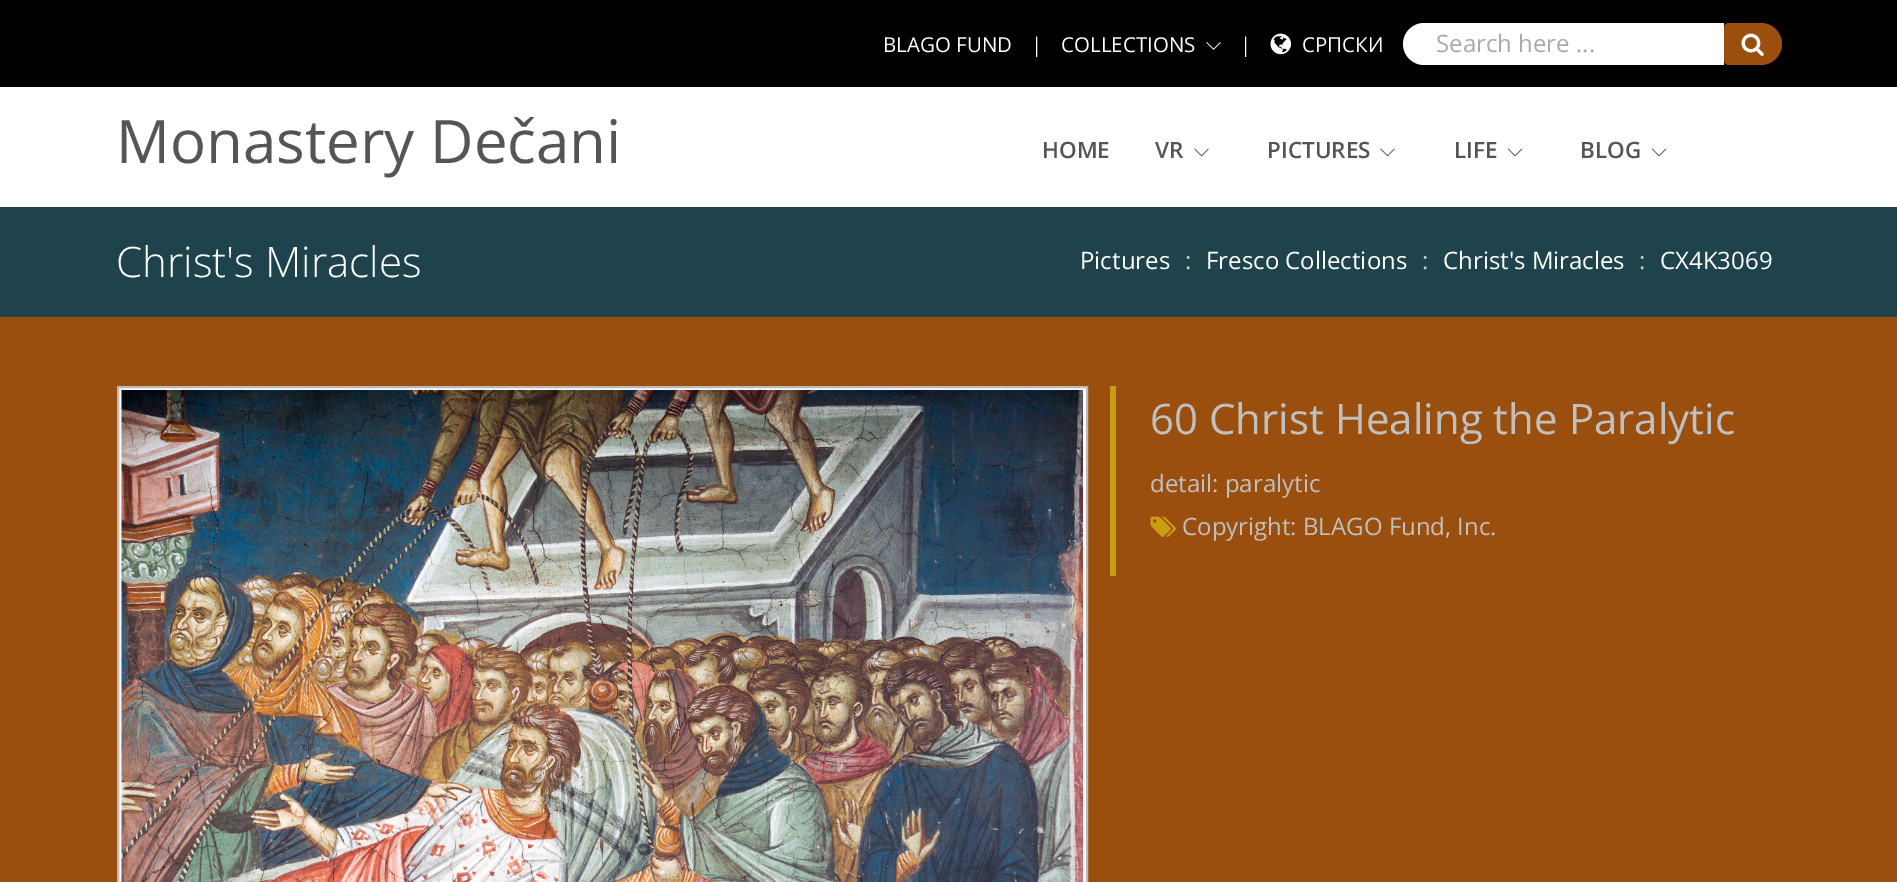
%!PS-Adobe-3.0
%%BoundingBox: 0 0 1897 882
%%LanguageLevel: 3
%%Pages: 1
%%EndComments
%%BeginProlog
/m { moveto } bind def
/l { lineto } bind def
/c { curveto } bind def
/h { closepath } bind def
/f { fill } bind def
/S { stroke } bind def
/q { gsave } bind def
/Q { grestore } bind def
/w { setlinewidth } bind def
/fn { [ exch dup neg 0 0 3 -1 roll 0 0 ] selectfont } def
/tx { moveto show } def
/bx { rectfill } def
/im { 5 dict begin { /h /w /y /x /name } { exch def } forall
  gsave x y translate w h scale
  w h 8 [w 0 0 h 0 0] name (r) file false 3 colorimage grestore end } def
%%EndProlog
%%BeginSetup
<< /PageSize [1897 882] >> setpagedevice
%%EndSetup
%%Page: 1 1
0 882 translate 1 -1 scale
4 setmiterlimit
1 setgray
0 0 1897 882 bx
0 setgray
0 0 1897 87 bx
/OpenSans-Regular 20.5 fn
1 setgray
(BLAGO FUND) 883 52 tx
(|) 1031 52 tx
(COLLECTIONS) 1061 52 tx
(image0.raw) 1206 42 15 8 im
(|) 1240 52 tx
(image1.raw) 1270 33 22 22 im
(СРПСКИ) 1302 52 tx
1424 23 m 1724 23 l 1724 65 l 1424 65 l 1412.5 65 1403 55.5 1403 44 c 1403 32.5 1412.5 23 1424 23 c h f
/OpenSans-Regular 24 fn
0.667 setgray
(Search here ...) 1436 52 tx
0.608 0.31 0.059 setrgbcolor
1729 23 m 1761 23 l 1772.5 23 1782 32.5 1782 44 c 1782 55.5 1772.5 65 1761 65 c 1729 65 l 1726 65 1724 63 1724 60 c 1724 28 l 1724 25 1726 23 1729 23 c h f
(image2.raw) 1741 33 23 23 im
/OpenSans-Regular 60 fn
0.333 setgray
(Monastery Dečani) 116 163 tx
/OpenSans-SemiBold 22.5 fn
(HOME) 1042 158 tx
(VR) 1155 158 tx
(image3.raw) 1194 148 15 9 im
(PICTURES) 1267 158 tx
(image3.raw) 1380 148 15 9 im
(LIFE) 1454 158 tx
(image4.raw) 1507 148 16 9 im
(BLOG) 1580 158 tx
(image4.raw) 1651 148 16 9 im
0.118 0.263 0.298 setrgbcolor
0 207 1897 110 bx
/OpenSans-Light 42 fn
1 setgray
(Christ's Miracles) 116 277 tx
/OpenSans-Regular 24 fn
(Pictures) 1080 269 tx
0.8 setgray
(:) 1185 269 tx
1 setgray
(Fresco Collections) 1206 269 tx
0.8 setgray
(:) 1422 269 tx
1 setgray
(Christ's Miracles) 1443 269 tx
0.8 setgray
(:) 1639 269 tx
1 setgray
(CX4K3069) 1660 269 tx
0.608 0.31 0.059 setrgbcolor
0 317 1897 565 bx
0.98 setgray
118 387 m 1087 387 l 1087 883 l 118 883 l h q f Q
0.733 setgray
2 w
S
(image5.raw) 121 390 962 492 im
0.788 0.62 0.063 setrgbcolor
1110 386 6 190 bx
/OpenSans-Regular 42 fn
0.753 setgray
(60 Christ Healing the Paralytic) 1150 434 tx
/OpenSans-Regular 24 fn
(detail: paralytic) 1150 492 tx
(image6.raw) 1150 516 26 21 im
(Copyright: BLAGO Fund, Inc.) 1182 535 tx
showpage
%%EOF
